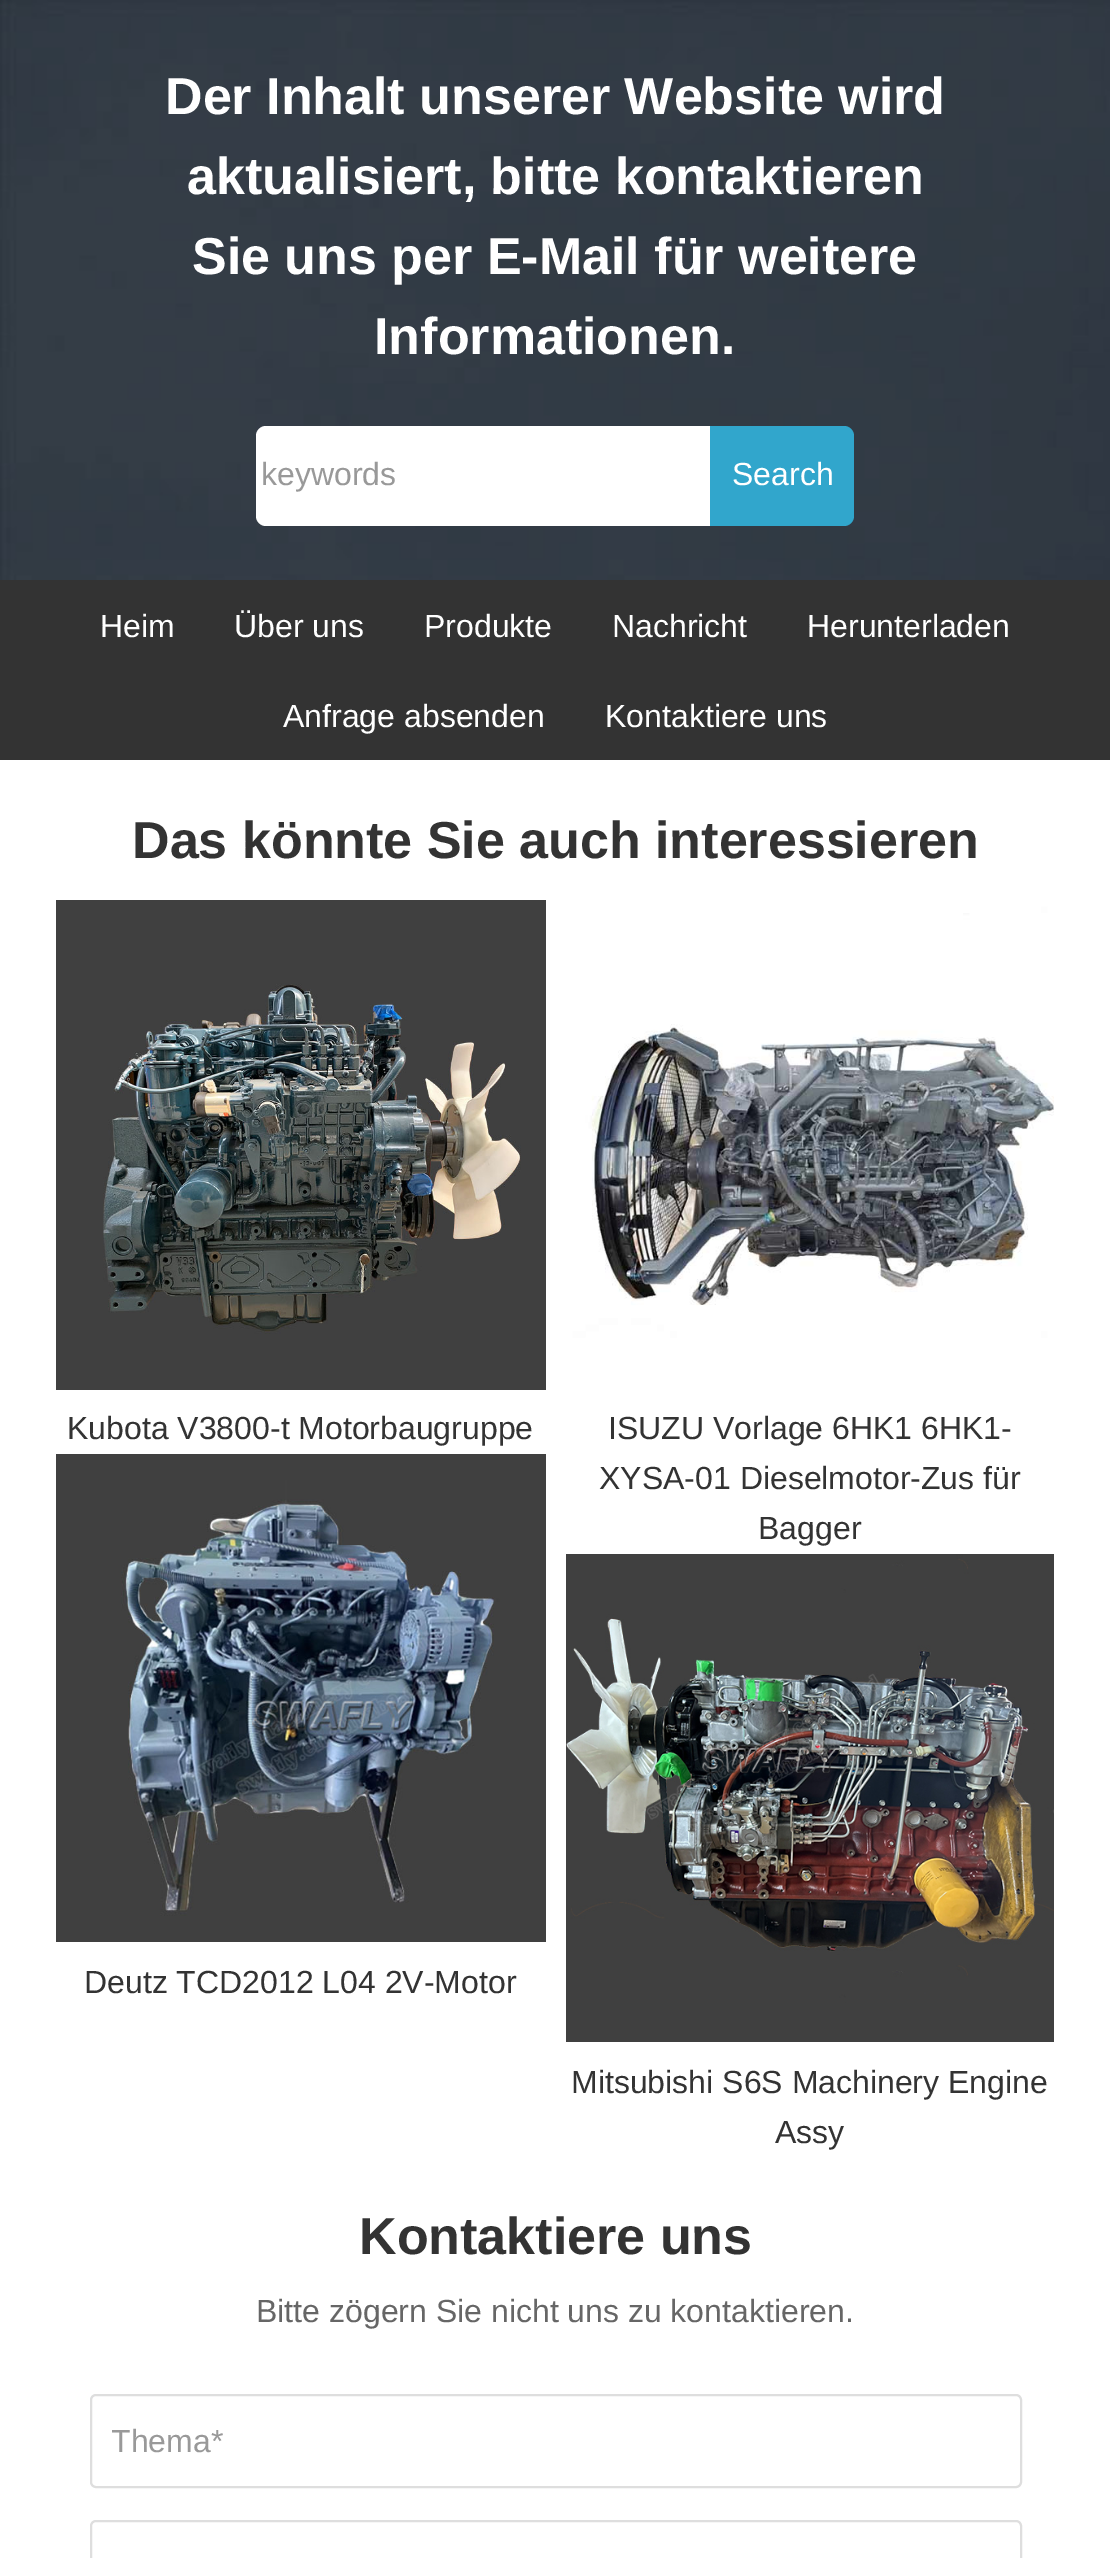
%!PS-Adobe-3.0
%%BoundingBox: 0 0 1110 2558
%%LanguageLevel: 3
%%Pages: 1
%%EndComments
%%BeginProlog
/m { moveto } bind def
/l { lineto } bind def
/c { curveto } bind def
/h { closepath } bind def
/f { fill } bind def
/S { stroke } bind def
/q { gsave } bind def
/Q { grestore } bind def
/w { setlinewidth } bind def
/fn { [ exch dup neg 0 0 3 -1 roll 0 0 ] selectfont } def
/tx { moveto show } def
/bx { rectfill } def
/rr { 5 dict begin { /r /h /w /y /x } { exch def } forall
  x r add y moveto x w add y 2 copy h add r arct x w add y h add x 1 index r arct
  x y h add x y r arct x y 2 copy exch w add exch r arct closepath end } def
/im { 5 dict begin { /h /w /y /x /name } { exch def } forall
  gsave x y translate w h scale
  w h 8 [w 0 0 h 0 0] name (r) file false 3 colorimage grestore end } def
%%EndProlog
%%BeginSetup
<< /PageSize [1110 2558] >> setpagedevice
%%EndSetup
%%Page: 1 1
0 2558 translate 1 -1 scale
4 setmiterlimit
1 setgray
0 0 1110 2558 bx
(image0.raw) 0 0 1110 580 im
/LiberationSans-Bold 52 fn
(Der Inhalt unserer Website wird) 165 114 tx
(aktualisiert, bitte kontaktieren) 187 194 tx
(Sie uns per E-Mail für weitere) 192 274 tx
(Informationen.) 374 354 tx
266 426 m 710 426 l 710 526 l 266 526 l 260.5 526 256 521.5 256 516 c 256 436 l 256 430.5 260.5 426 266 426 c h f
/LiberationSans-Regular 32 fn
0.6 setgray
(keywords) 261 485 tx
0.192 0.651 0.8 setrgbcolor
710 426 m 844 426 l 849.5 426 854 430.5 854 436 c 854 516 l 854 521.5 849.5 526 844 526 c 710 526 l h f
1 setgray
(Search) 732 485 tx
0.2 setgray
0 580 1110 180 bx
1 setgray
(Heim) 100 637 tx
(Über uns) 234 637 tx
(Produkte) 424 637 tx
(Nachricht) 612 637 tx
(Herunterladen) 807 637 tx
(Anfrage absenden) 283 727 tx
(Kontaktiere uns) 605 727 tx
/LiberationSans-Bold 52 fn
0.2 setgray
(Das könnte Sie auch interessieren) 132 858 tx
(image1.raw) 56 900 490 490 im
/LiberationSans-Regular 32 fn
(Kubota V3800-t Motorbaugruppe) 67 1439 tx
(image2.raw) 566 900 488 490 im
(ISUZU Vorlage 6HK1 6HK1-) 608 1439 tx
(XYSA-01 Dieselmotor-Zus für) 599 1489 tx
(Bagger) 758 1539 tx
(image3.raw) 56 1454 490 488 im
(Deutz TCD2012 L04 2V-Motor) 84 1993 tx
(image4.raw) 566 1554 488 488 im
(Mitsubishi S6S Machinery Engine) 571 2093 tx
(Assy) 775 2143 tx
/LiberationSans-Bold 52 fn
(Kontaktiere uns) 359 2254 tx
/LiberationSans-Regular 32 fn
0.4 setgray
(Bitte zögern Sie nicht uns zu kontaktieren.) 256 2322 tx
0.871 setgray
2 w
91 2395 930 92 5 rr S
q
112 2424 888 36 rectclip
0.6 setgray
(Thema*) 111 2452 tx
Q
91 2521 930 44 5 rr S
showpage
%%EOF
